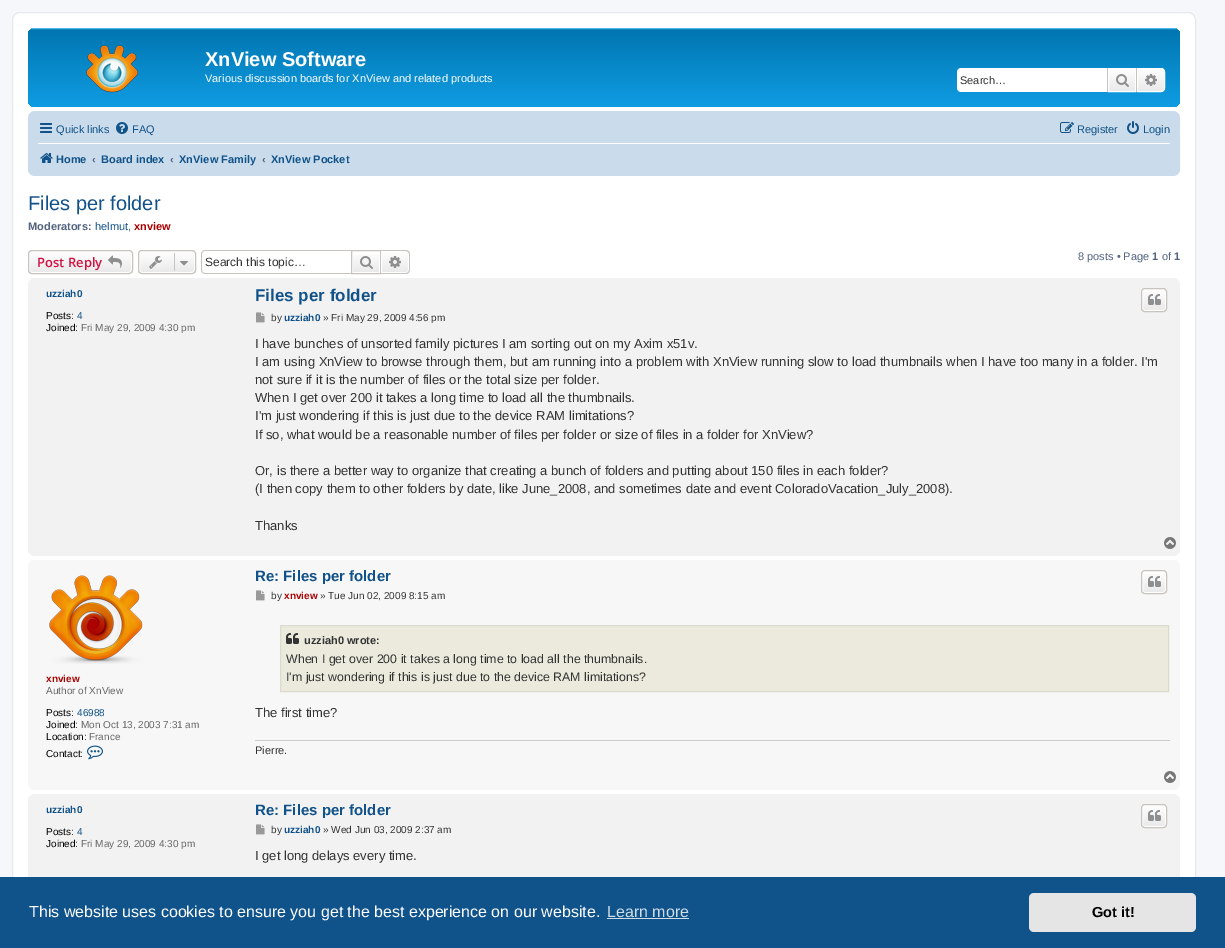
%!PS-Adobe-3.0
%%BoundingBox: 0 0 1225 948
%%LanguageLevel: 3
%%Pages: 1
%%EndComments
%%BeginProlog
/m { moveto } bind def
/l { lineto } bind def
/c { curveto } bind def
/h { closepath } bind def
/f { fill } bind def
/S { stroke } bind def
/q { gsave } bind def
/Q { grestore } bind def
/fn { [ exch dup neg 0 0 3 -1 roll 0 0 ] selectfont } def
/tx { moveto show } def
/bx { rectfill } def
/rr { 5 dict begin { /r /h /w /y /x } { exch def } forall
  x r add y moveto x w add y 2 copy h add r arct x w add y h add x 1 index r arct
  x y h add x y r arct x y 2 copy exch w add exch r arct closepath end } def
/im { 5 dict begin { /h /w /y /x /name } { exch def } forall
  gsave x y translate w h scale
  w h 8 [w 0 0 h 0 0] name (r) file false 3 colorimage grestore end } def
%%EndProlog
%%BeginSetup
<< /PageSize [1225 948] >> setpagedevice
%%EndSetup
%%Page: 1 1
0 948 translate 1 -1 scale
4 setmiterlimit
0.961 0.969 0.98 setrgbcolor
0 0 1225 948 bx
1 setgray
12.5 12.5 1183 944 7.5 rr q f Q
0.902 0.914 0.929 setrgbcolor
S
q 28 28 1152 79 7 rr clip newpath
<< /ShadingType 2 /ColorSpace /DeviceRGB /Coords [604 28 604 120] /Extend [true true] /Function << /FunctionType 3 /Domain [0 1] /Functions [<< /FunctionType 2 /Domain [0 1] /C0 [0.416 0.808 1] /C1 [0 0.463 0.694] /N 1 >> << /FunctionType 2 /Domain [0 1] /C0 [0 0.463 0.694] /C1 [0.071 0.639 0.922] /N 1 >>] /Bounds [0.02] /Encode [0 1 0 1] >> >> shfill Q
(image0.raw) 86 45 52 48 im
/LiberationSans-Bold 20 fn
1 setgray
(XnView Software) 205 66 tx
/LiberationSans-Regular 11 fn
(Various discussion boards for XnView and related products) 205 82 tx
961 68 m 1107 68 l 1107 92 l 961 92 l 959 92 957 90 957 88 c 957 72 l 957 70 959 68 961 68 c h f
0.2 setgray
(Search…) 960 84 tx
q 1109 69 m 1135 69 l 1135 91 l 1109 91 l h clip newpath
<< /ShadingType 2 /ColorSpace /DeviceRGB /Coords [1122 68 1122 92] /Extend [true true] /Function << /FunctionType 2 /Domain [0 1] /C0 [1 1 1] /C1 [0.914 0.914 0.914] /N 1 >> >> shfill Q
1 setgray
1108.5 68.5 27 23 rectstroke
0.78 0.765 0.749 setrgbcolor
1136 68 1 24 bx
1107 68 1 24 bx
(image1.raw) 1116 74 13 13 im
q 1137.5 68.5 m 1161 68.5 l 1163 68.5 1164.5 70 1164.5 72 c 1164.5 88 l 1164.5 90 1163 91.5 1161 91.5 c 1137.5 91.5 l h clip newpath
<< /ShadingType 2 /ColorSpace /DeviceRGB /Coords [1151 68 1151 92] /Extend [true true] /Function << /FunctionType 2 /Domain [0 1] /C0 [1 1 1] /C1 [0.914 0.914 0.914] /N 1 >> >> shfill Q
1 setgray
1137.5 68.5 m 1161 68.5 l 1163 68.5 1164.5 70 1164.5 72 c 1164.5 88 l 1164.5 90 1163 91.5 1161 91.5 c 1137.5 91.5 l h S
(image2.raw) 1145 74 12 12 im
0.792 0.863 0.922 setrgbcolor
28 111 1152 65 7 rr f
(image3.raw) 40 123 12 10 im
0.063 0.322 0.537 setrgbcolor
(Quick links) 56 133 tx
(image4.raw) 116 122 12 12 im
(FAQ) 132 133 tx
(image5.raw) 1060 122 14 11 im
(Register) 1077 133 tx
(image6.raw) 1127 121 12 13 im
(Login) 1143 133 tx
1 setgray
38 143 1132 1 bx
(image7.raw) 40 153 13 10 im
/LiberationSans-Bold 11 fn
0.063 0.322 0.537 setrgbcolor
(Home) 56 163 tx
0.325 0.392 0.51 setrgbcolor
(‹) 92 163 tx
0.063 0.322 0.537 setrgbcolor
(Board index) 101 163 tx
0.325 0.392 0.51 setrgbcolor
(‹) 170 163 tx
0.063 0.322 0.537 setrgbcolor
(XnView Family) 179 163 tx
0.325 0.392 0.51 setrgbcolor
(‹) 262 163 tx
0.063 0.322 0.537 setrgbcolor
(XnView Pocket) 271 163 tx
/LiberationSans-Regular 20 fn
(Files per folder) 28 210 tx
/LiberationSans-Bold 11 fn
0.325 0.392 0.51 setrgbcolor
(Moderators:) 28 230 tx
/LiberationSans-Regular 11 fn
0.063 0.322 0.537 setrgbcolor
(helmut) 95 230 tx
0.325 0.392 0.51 setrgbcolor
(,) 128 230 tx
/LiberationSans-Bold 11 fn
0.667 0 0 setrgbcolor
(xnview) 134 230 tx
q
28 250 105 24 4 rr clip newpath
q 28 251 m 133 251 l 133 273 l 28 273 l h clip newpath
<< /ShadingType 2 /ColorSpace /DeviceRGB /Coords [81 251 81 273] /Extend [true true] /Function << /FunctionType 2 /Domain [0 1] /C0 [1 1 1] /C1 [0.914 0.914 0.914] /N 1 >> >> shfill Q
Q
1 setgray
29.5 251.5 102 21 2.5 rr S
0.78 0.765 0.749 setrgbcolor
28.5 250.5 104 23 3.5 rr S
/OpenSans-SemiBold 13 fn
0.827 0.067 0.255 setrgbcolor
(Post Reply) 37 267 tx
(image8.raw) 108 255 14 13 im
q
138 250 58 24 4 rr clip newpath
q 138 251 m 196 251 l 196 273 l 138 273 l h clip newpath
<< /ShadingType 2 /ColorSpace /DeviceRGB /Coords [167 251 167 273] /Extend [true true] /Function << /FunctionType 2 /Domain [0 1] /C0 [1 1 1] /C1 [0.914 0.914 0.914] /N 1 >> >> shfill Q
Q
1 setgray
139.5 251.5 55 21 2.5 rr S
0.78 0.765 0.749 setrgbcolor
138.5 250.5 57 23 3.5 rr S
(image9.raw) 149 256 13 13 im
174 253 1 18 bx
(image10.raw) 180 261 8 5 im
205 250 m 351 250 l 351 274 l 205 274 l 203 274 201 272 201 270 c 201 254 l 201 252 203 250 205 250 c h 205 251 m 351 251 l 351 273 l 205 273 l 203 273 202 272 202 270 c 202 254 l 202 252 203 251 205 251 c h eofill
/LiberationSans-Regular 12 fn
0.2 setgray
(Search this topic…) 205 266 tx
q 353 254 m 379 254 l 379 272 l 353 272 l h clip newpath
<< /ShadingType 2 /ColorSpace /DeviceRGB /Coords [366 251 366 273] /Extend [true true] /Function << /FunctionType 2 /Domain [0 1] /C0 [1 1 1] /C1 [0.914 0.914 0.914] /N 1 >> >> shfill Q
0.78 0.765 0.749 setrgbcolor
351.5 250.5 29 23 rectstroke
(image11.raw) 360 256 13 13 im
q 381.5 251.5 m 406 251.5 l 407.5 251.5 408.5 252.5 408.5 254 c 408.5 270 l 408.5 271.5 407.5 272.5 406 272.5 c 381.5 272.5 l h clip newpath
<< /ShadingType 2 /ColorSpace /DeviceRGB /Coords [395 251 395 273] /Extend [true true] /Function << /FunctionType 2 /Domain [0 1] /C0 [1 1 1] /C1 [0.914 0.914 0.914] /N 1 >> >> shfill Q
1 setgray
381.5 251.5 m 406 251.5 l 407.5 251.5 408.5 252.5 408.5 254 c 408.5 270 l 408.5 271.5 407.5 272.5 406 272.5 c 381.5 272.5 l h S
0.78 0.765 0.749 setrgbcolor
381 250 m 406 250 l 408 250 410 252 410 254 c 410 270 l 410 272 408 274 406 274 c 381 274 l h 381 251 m 406 251 l 407.5 251 409 252.5 409 254 c 409 270 l 409 271.5 407.5 273 406 273 c 381 273 l h eofill
(image12.raw) 389 256 12 12 im
/LiberationSans-Regular 11 fn
0.325 0.392 0.51 setrgbcolor
(8 posts • Page) 1078 260 tx
/LiberationSans-Bold 11 fn
(1) 1152 260 tx
/LiberationSans-Regular 11 fn
(of) 1162 260 tx
/LiberationSans-Bold 11 fn
(1) 1174 260 tx
0.949 setgray
28 278 1152 278 7 rr f
/LiberationSans-Bold 10 fn
0.063 0.322 0.537 setrgbcolor
(uzziah0) 46 297 tx
/LiberationSans-Regular 10 fn
0 setgray
(Posts:) 46 319 tx
0.063 0.322 0.537 setrgbcolor
(4) 77 319 tx
0 setgray
(Joined:) 46 331 tx
0.4 setgray
(Fri May 29, 2009 4:30 pm) 81 331 tx
/LiberationSans-Bold 17 fn
0.063 0.322 0.537 setrgbcolor
(Files per folder) 255 301 tx
q
1141 288 26 24 4 rr clip newpath
q 1141 289 m 1167 289 l 1167 311 l 1141 311 l h clip newpath
<< /ShadingType 2 /ColorSpace /DeviceRGB /Coords [1154 289 1154 311] /Extend [true true] /Function << /FunctionType 2 /Domain [0 1] /C0 [1 1 1] /C1 [0.914 0.914 0.914] /N 1 >> >> shfill Q
Q
1 setgray
1142.5 289.5 23 21 2.5 rr S
0.78 0.765 0.749 setrgbcolor
1141.5 288.5 25 23 3.5 rr S
(image13.raw) 1148 294 13 11 im
(image14.raw) 256 312 9 11 im
/LiberationSans-Regular 10 fn
0.2 setgray
(by) 271 321 tx
/LiberationSans-Bold 10 fn
0.063 0.322 0.537 setrgbcolor
(uzziah0) 284 321 tx
/LiberationSans-Regular 10 fn
0.2 setgray
(» Fri May 29, 2009 4:56 pm) 323 321 tx
/LiberationSans-Regular 13 fn
(I have bunches of unsorted family pictures I am sorting out on my Axim x51v.) 255 348 tx
(I am using XnView to browse through them, but am running into a problem with XnView running slow to load thumbnails when I have too many in a folder. I'm) 255 366 tx
(not sure if it is the number of files or the total size per folder.) 255 384 tx
(When I get over 200 it takes a long time to load all the thumbnails.) 255 402 tx
(I'm just wondering if this is just due to the device RAM limitations?) 255 420 tx
(If so, what would be a reasonable number of files per folder or size of files in a folder for XnView?) 255 439 tx
(Or, is there a better way to organize that creating a bunch of folders and putting about 150 files in each folder?) 255 475 tx
(\(I then copy them to other folders by date, like June_2008, and sometimes date and event ColoradoVacation_July_2008\).) 255 493 tx
(Thanks) 255 530 tx
(image15.raw) 1164 537 12 12 im
0.969 setgray
28 560 1152 230 7 rr f
(image16.raw) 49 575 94 89 im
/LiberationSans-Bold 10 fn
0.667 0 0 setrgbcolor
(xnview) 46 682 tx
/LiberationSans-Regular 10 fn
0.4 setgray
(Author of XnView) 46 694 tx
0 setgray
(Posts:) 46 716 tx
0.063 0.322 0.537 setrgbcolor
(46988) 77 716 tx
0 setgray
(Joined:) 46 728 tx
0.4 setgray
(Mon Oct 13, 2003 7:31 am) 81 728 tx
0 setgray
(Location:) 46 740 tx
0.4 setgray
(France) 89 740 tx
0 setgray
(Contact:) 46 757 tx
(image17.raw) 87 745 16 15 im
/LiberationSans-Bold 15 fn
0.063 0.322 0.537 setrgbcolor
(Re: Files per folder) 255 581 tx
q
1141 570 26 24 4 rr clip newpath
q 1141 571 m 1167 571 l 1167 593 l 1141 593 l h clip newpath
<< /ShadingType 2 /ColorSpace /DeviceRGB /Coords [1154 571 1154 593] /Extend [true true] /Function << /FunctionType 2 /Domain [0 1] /C0 [1 1 1] /C1 [0.914 0.914 0.914] /N 1 >> >> shfill Q
Q
1 setgray
1142.5 571.5 23 21 2.5 rr S
0.78 0.765 0.749 setrgbcolor
1141.5 570.5 25 23 3.5 rr S
(image13.raw) 1148 576 13 11 im
(image18.raw) 256 590 9 11 im
/LiberationSans-Regular 10 fn
0.2 setgray
(by) 271 599 tx
/LiberationSans-Bold 10 fn
0.667 0 0 setrgbcolor
(xnview) 284 599 tx
/LiberationSans-Regular 10 fn
0.2 setgray
(» Tue Jun 02, 2009 8:15 am) 320 599 tx
0.922 0.918 0.867 setrgbcolor
280.5 625.5 m 1168.5 625.5 l 1168.5 691.5 l 280.5 691.5 l h q f Q
0.859 0.859 0.808 setrgbcolor
S
(image19.raw) 286 633 13 11 im
/LiberationSans-Bold 11 fn
0.2 setgray
(uzziah0 wrote:) 304 644 tx
/LiberationSans-Regular 12.35 fn
(When I get over 200 it takes a long time to load all the thumbnails.) 286 663 tx
(I'm just wondering if this is just due to the device RAM limitations?) 286 681 tx
/LiberationSans-Regular 13 fn
(The first time?) 255 717 tx
0.8 setgray
255 740 915 1 bx
/LiberationSans-Regular 11 fn
0.2 setgray
(Pierre.) 255 754 tx
(image20.raw) 1164 771 12 12 im
0.949 setgray
28 794 1152 120 7 rr f
/LiberationSans-Bold 10 fn
0.063 0.322 0.537 setrgbcolor
(uzziah0) 46 813 tx
/LiberationSans-Regular 10 fn
0 setgray
(Posts:) 46 835 tx
0.063 0.322 0.537 setrgbcolor
(4) 77 835 tx
0 setgray
(Joined:) 46 847 tx
0.4 setgray
(Fri May 29, 2009 4:30 pm) 81 847 tx
/LiberationSans-Bold 15 fn
0.063 0.322 0.537 setrgbcolor
(Re: Files per folder) 255 815 tx
q
1141 804 26 24 4 rr clip newpath
q 1141 805 m 1167 805 l 1167 827 l 1141 827 l h clip newpath
<< /ShadingType 2 /ColorSpace /DeviceRGB /Coords [1154 805 1154 827] /Extend [true true] /Function << /FunctionType 2 /Domain [0 1] /C0 [1 1 1] /C1 [0.914 0.914 0.914] /N 1 >> >> shfill Q
Q
1 setgray
1142.5 805.5 23 21 2.5 rr S
0.78 0.765 0.749 setrgbcolor
1141.5 804.5 25 23 3.5 rr S
(image13.raw) 1148 810 13 11 im
(image14.raw) 256 824 9 11 im
/LiberationSans-Regular 10 fn
0.2 setgray
(by) 271 833 tx
/LiberationSans-Bold 10 fn
0.063 0.322 0.537 setrgbcolor
(uzziah0) 284 833 tx
/LiberationSans-Regular 10 fn
0.2 setgray
(» Wed Jun 03, 2009 2:37 am) 323 833 tx
/LiberationSans-Regular 13 fn
(I get long delays every time.) 255 860 tx
0.059 0.325 0.541 setrgbcolor
0 877 1225 71 bx
/LiberationSans-Regular 16 fn
1 setgray
(This website uses cookies to ensure you get the best experience on our website.) 29 917 tx
0.812 0.867 0.91 setrgbcolor
(Learn more) 607 917 tx
607 918 82 1 bx
0.898 setgray
1029 893 167 39 5 rr f
/LiberationSans-Bold 14.5 fn
0 setgray
(Got it!) 1092 917 tx
showpage
%%EOF
